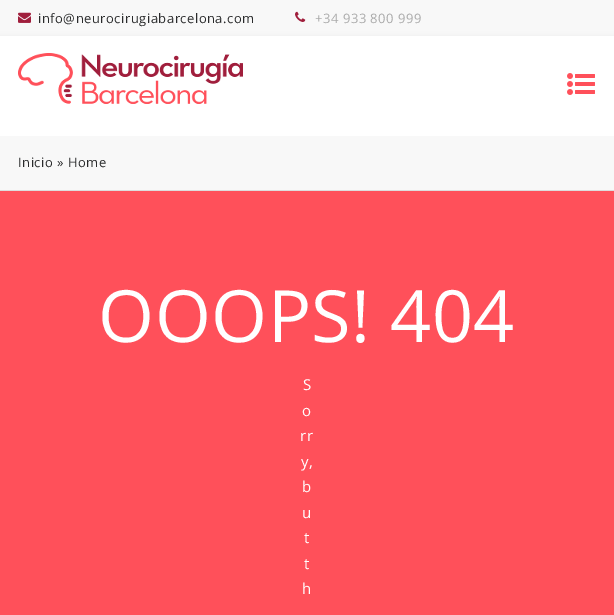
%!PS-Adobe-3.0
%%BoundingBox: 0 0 614 615
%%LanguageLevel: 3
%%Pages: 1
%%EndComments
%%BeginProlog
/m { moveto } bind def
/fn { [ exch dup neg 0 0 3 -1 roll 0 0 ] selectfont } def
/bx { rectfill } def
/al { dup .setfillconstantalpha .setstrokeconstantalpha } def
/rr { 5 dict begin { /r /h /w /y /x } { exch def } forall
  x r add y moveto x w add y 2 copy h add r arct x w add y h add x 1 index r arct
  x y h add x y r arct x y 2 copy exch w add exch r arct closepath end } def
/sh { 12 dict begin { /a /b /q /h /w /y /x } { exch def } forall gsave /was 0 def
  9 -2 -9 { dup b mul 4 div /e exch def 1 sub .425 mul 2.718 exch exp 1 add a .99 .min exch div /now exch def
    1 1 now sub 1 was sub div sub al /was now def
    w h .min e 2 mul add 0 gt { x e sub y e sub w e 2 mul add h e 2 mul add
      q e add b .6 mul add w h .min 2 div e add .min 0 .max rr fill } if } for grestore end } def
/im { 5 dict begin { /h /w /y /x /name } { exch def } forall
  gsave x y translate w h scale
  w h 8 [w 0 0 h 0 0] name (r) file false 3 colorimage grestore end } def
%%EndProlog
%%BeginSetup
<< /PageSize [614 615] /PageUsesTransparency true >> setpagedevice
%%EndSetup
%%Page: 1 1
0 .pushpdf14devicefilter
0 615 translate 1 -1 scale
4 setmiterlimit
0.973 setgray
0 0 614 615 bx
(image0.raw) 18 12 13 11 im
/OpenSans-Regular 13 fn
0.165 0.169 0.173 setrgbcolor
38 23 m 0.5 0 (info@neurocirugiabarcelona.com) ashow
(image1.raw) 295 11 11 11 im
0.667 setgray
315 23 m 0.5 0 (+34 933 800 999) ashow
0 setgray
0 38 614 76 0 3 0.1 sh
1 setgray
0 36 614 100 bx
(image2.raw) 567 73 28 22 im
(image3.raw) 18 53 225 51 im
0.867 setgray
0 190 614 1 bx
0.165 0.169 0.173 setrgbcolor
18 167 m 0.5 0 (Inicio » Home) ashow
1 0.314 0.353 setrgbcolor
0 191 614 424 bx
/OpenSans-Regular 72 fn
1 setgray
98 342 m 0.5 0 (OOOPS! 404) ashow
/OpenSans-Regular 15 fn
303 390 m 0.5 0 (S) ashow
302 416 m 0.5 0 (o) ashow
300 441 m 0.5 0 (rr) ashow
301 467 m 0.5 0 (y,) ashow
302 492 m 0.5 0 (b) ashow
302 518 m 0.5 0 (u) ashow
304 543 m 0.5 0 (t) ashow
304 569 m 0.5 0 (t) ashow
302 594 m 0.5 0 (h) ashow
.poppdf14devicefilter showpage
%%EOF
